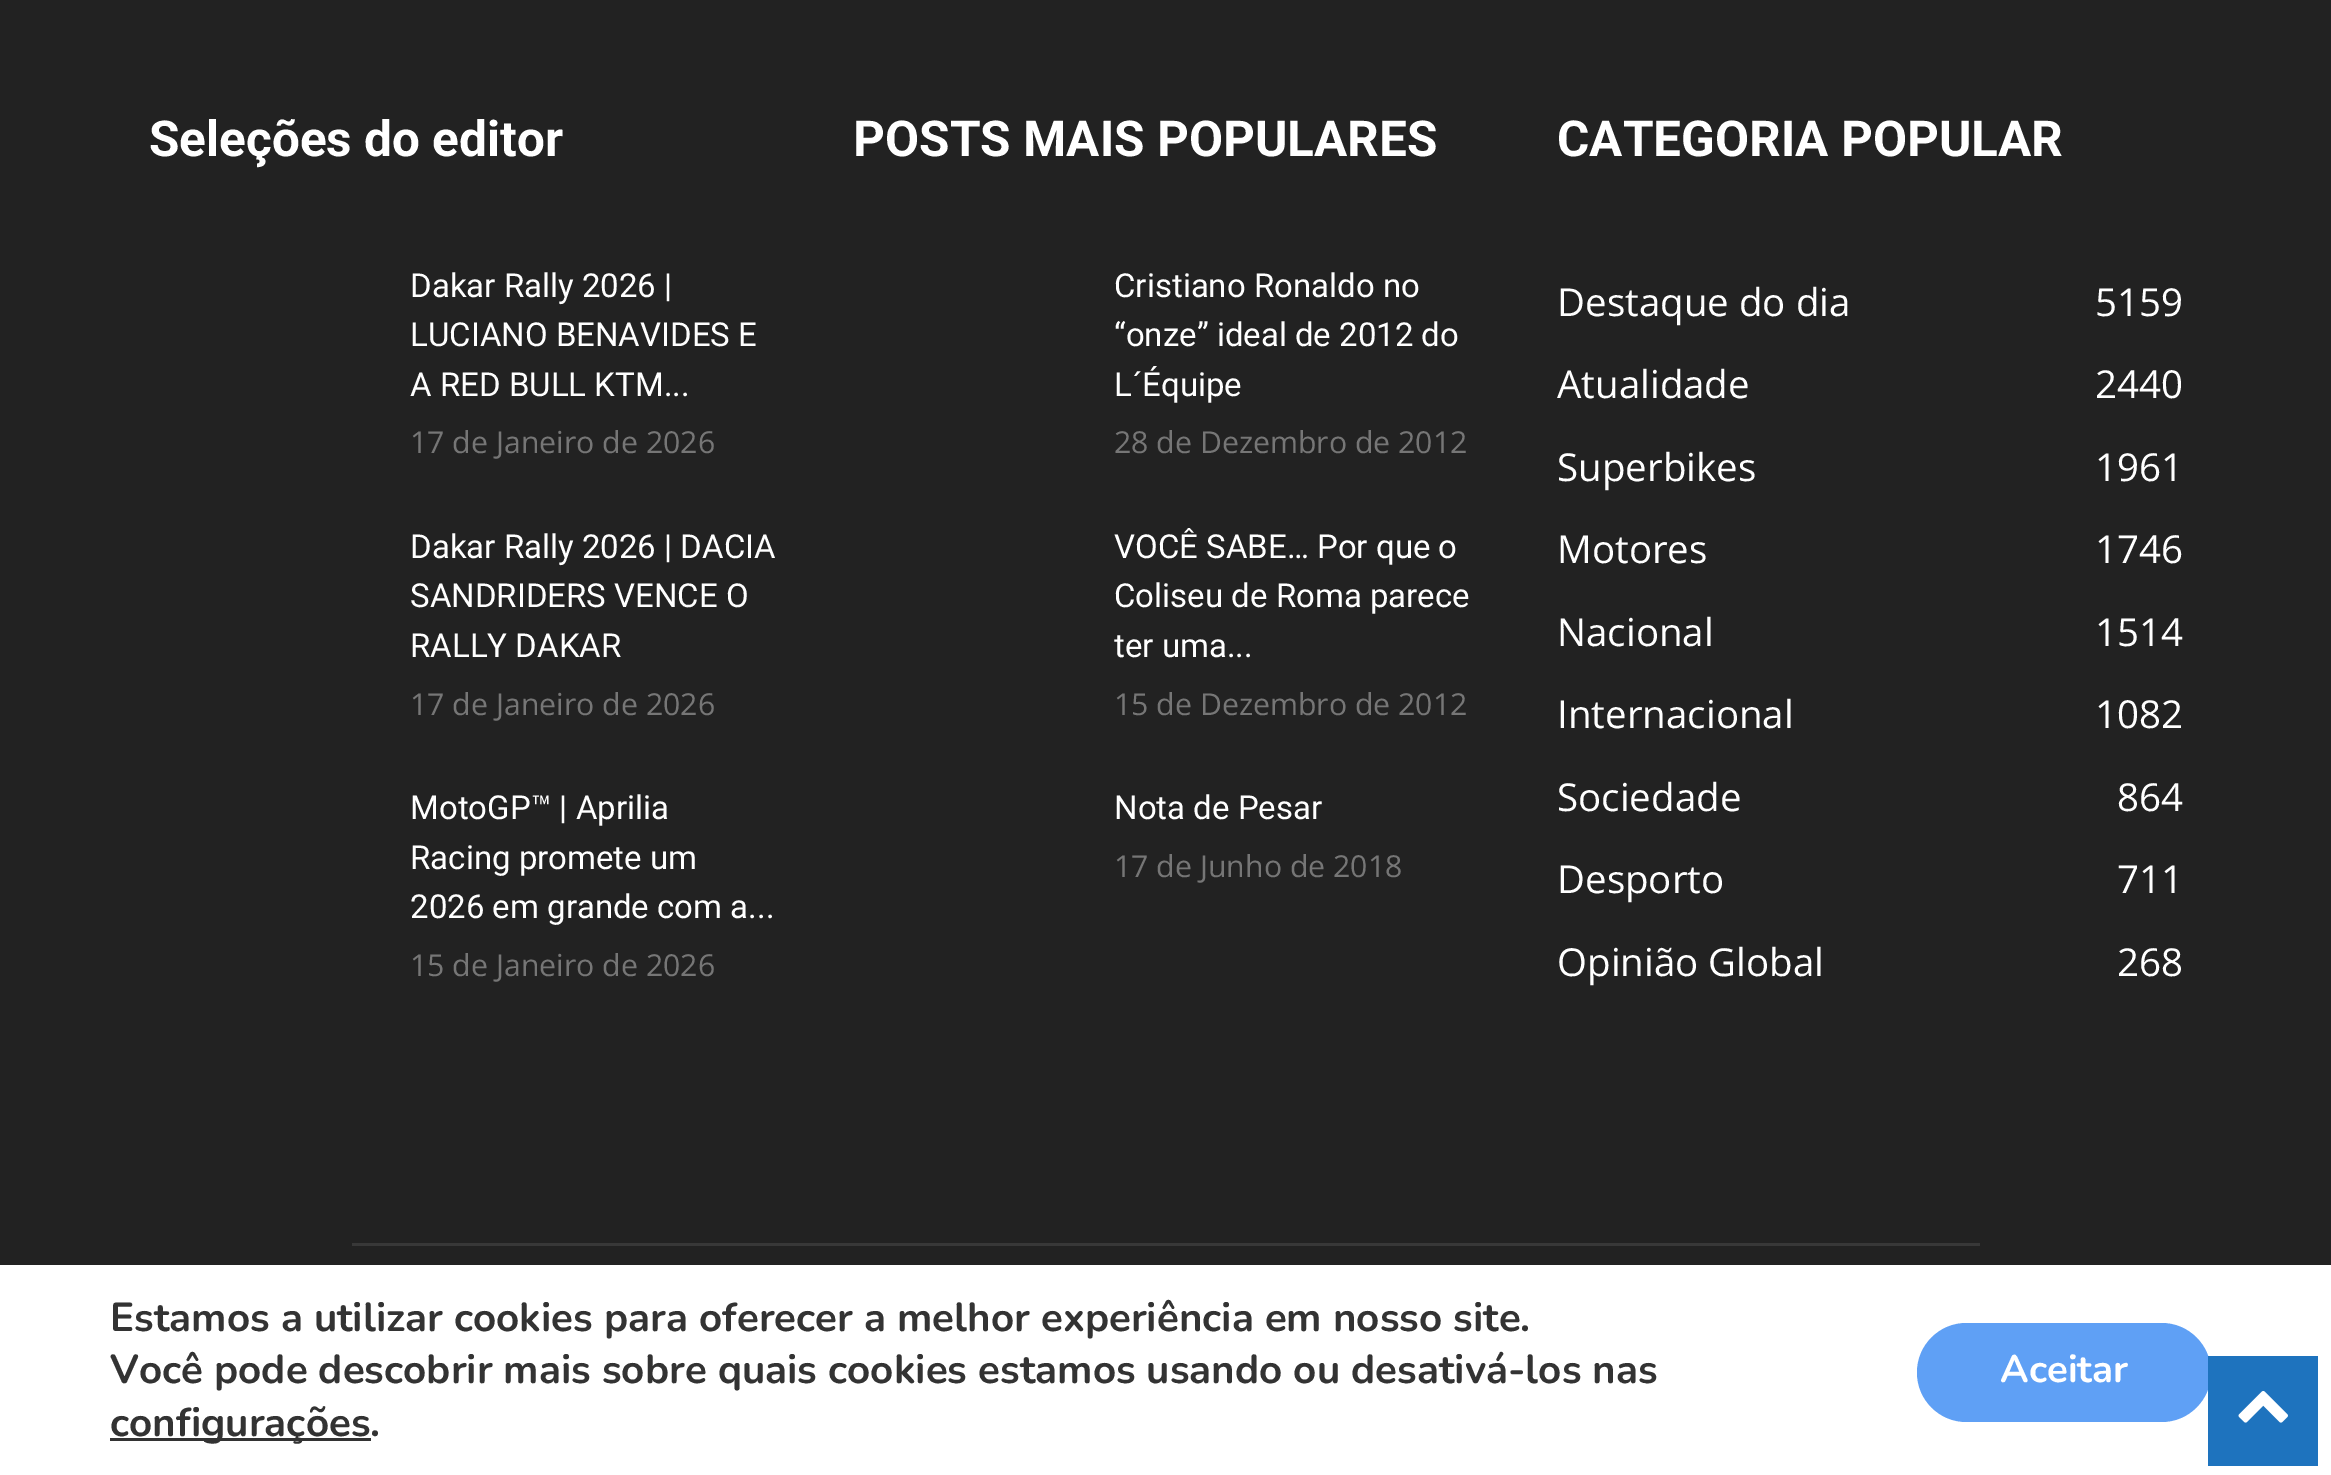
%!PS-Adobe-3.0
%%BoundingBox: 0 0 2331 1475
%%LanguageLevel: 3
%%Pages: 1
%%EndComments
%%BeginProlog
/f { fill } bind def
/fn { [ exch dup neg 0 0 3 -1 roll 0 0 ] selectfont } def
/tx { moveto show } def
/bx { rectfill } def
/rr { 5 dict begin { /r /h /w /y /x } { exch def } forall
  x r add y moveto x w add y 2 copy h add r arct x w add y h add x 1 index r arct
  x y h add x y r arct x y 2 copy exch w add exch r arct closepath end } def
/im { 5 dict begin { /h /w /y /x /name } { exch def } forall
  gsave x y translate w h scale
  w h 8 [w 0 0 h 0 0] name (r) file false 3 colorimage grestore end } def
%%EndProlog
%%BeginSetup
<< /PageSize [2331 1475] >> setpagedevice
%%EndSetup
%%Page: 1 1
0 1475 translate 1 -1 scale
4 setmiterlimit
0.133 setgray
0 0 2331 1475 bx
/Roboto-Bold 49.5 fn
1 setgray
(Seleções do editor) 149 156 tx
/Roboto-Regular 33 fn
(Dakar Rally 2026 |) 410 297 tx
(LUCIANO BENAVIDES E) 410 346 tx
(A RED BULL KTM...) 410 396 tx
/OpenSans-Regular 30.25 fn
0.463 setgray
(17 de Janeiro de 2026) 410 453 tx
/Roboto-Regular 33 fn
1 setgray
(Dakar Rally 2026 | DACIA) 410 558 tx
(SANDRIDERS VENCE O) 410 607 tx
(RALLY DAKAR) 410 657 tx
/OpenSans-Regular 30.25 fn
0.463 setgray
(17 de Janeiro de 2026) 410 715 tx
/Roboto-Regular 33 fn
1 setgray
(MotoGP™ | Aprilia) 410 819 tx
(Racing promete um) 410 869 tx
(2026 em grande com a...) 410 918 tx
/OpenSans-Regular 30.25 fn
0.463 setgray
(15 de Janeiro de 2026) 410 976 tx
/Roboto-Bold 49.5 fn
1 setgray
(POSTS MAIS POPULARES) 853 156 tx
/Roboto-Regular 33 fn
(Cristiano Ronaldo no) 1114 297 tx
(“onze” ideal de 2012 do) 1114 346 tx
(L´Équipe) 1114 396 tx
/OpenSans-Regular 30.25 fn
0.463 setgray
(28 de Dezembro de 2012) 1114 453 tx
/Roboto-Regular 33 fn
1 setgray
(VOCÊ SABE… Por que o) 1114 558 tx
(Coliseu de Roma parece) 1114 607 tx
(ter uma...) 1114 657 tx
/OpenSans-Regular 30.25 fn
0.463 setgray
(15 de Dezembro de 2012) 1114 715 tx
/Roboto-Regular 33 fn
1 setgray
(Nota de Pesar) 1114 819 tx
/OpenSans-Regular 30.25 fn
0.463 setgray
(17 de Junho de 2018) 1114 877 tx
/Roboto-Bold 49.5 fn
1 setgray
(CATEGORIA POPULAR) 1557 156 tx
/OpenSans-Regular 38.5 fn
(Destaque do dia) 1557 316 tx
(5159) 2095 316 tx
(Atualidade) 1557 398 tx
(2440) 2095 398 tx
(Superbikes) 1557 481 tx
(1961) 2095 481 tx
(Motores) 1557 563 tx
(1746) 2095 563 tx
(Nacional) 1557 646 tx
(1514) 2095 646 tx
(Internacional) 1557 728 tx
(1082) 2095 728 tx
(Sociedade) 1557 811 tx
(864) 2117 811 tx
(Desporto) 1557 893 tx
(711) 2117 893 tx
(Opinião Global) 1557 976 tx
(268) 2117 976 tx
0.22 setgray
352 1243 1628 3 bx
1 setgray
0 1265 2331 210 bx
/Nunito-Bold 40.35 fn
0.2 setgray
(Estamos a utilizar cookies para oferecer a melhor experiência em nosso site.) 110 1331 tx
(Você pode descobrir mais sobre quais cookies estamos usando ou desativá-los nas) 110 1383 tx
110 1438 261 3 bx
(configurações.) 110 1436 tx
0.373 0.627 0.961 setrgbcolor
1917 1323 294 99 49.5 rr f
/Nunito-Bold 38.5 fn
1 setgray
(Aceitar) 2000 1382 tx
0.118 0.451 0.745 setrgbcolor
2208 1356 110 110 bx
(image0.raw) 2238 1391 50 32 im
showpage
%%EOF
